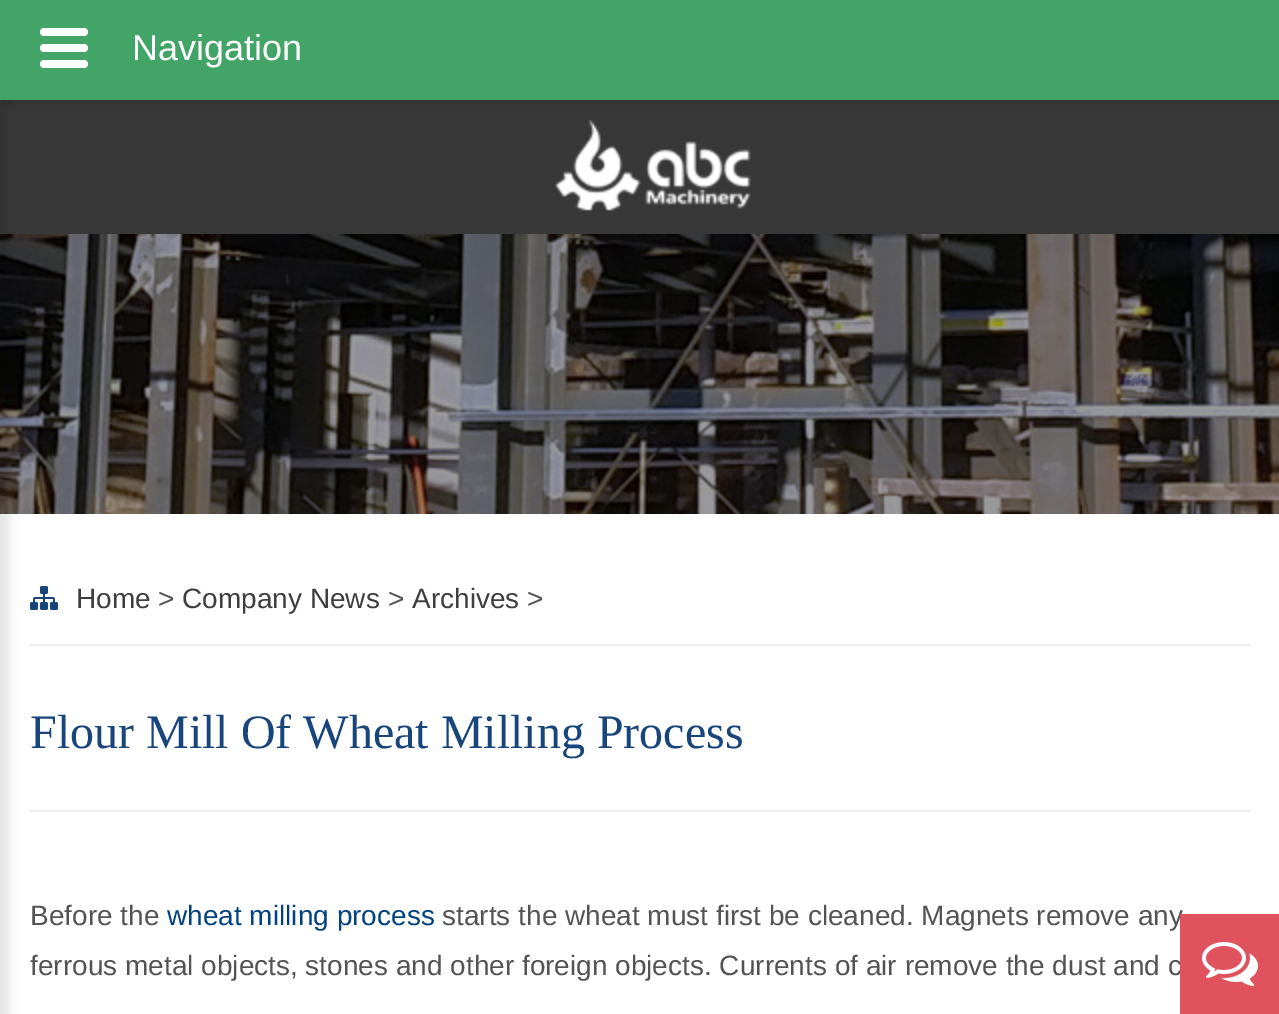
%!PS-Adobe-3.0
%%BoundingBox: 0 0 1279 1014
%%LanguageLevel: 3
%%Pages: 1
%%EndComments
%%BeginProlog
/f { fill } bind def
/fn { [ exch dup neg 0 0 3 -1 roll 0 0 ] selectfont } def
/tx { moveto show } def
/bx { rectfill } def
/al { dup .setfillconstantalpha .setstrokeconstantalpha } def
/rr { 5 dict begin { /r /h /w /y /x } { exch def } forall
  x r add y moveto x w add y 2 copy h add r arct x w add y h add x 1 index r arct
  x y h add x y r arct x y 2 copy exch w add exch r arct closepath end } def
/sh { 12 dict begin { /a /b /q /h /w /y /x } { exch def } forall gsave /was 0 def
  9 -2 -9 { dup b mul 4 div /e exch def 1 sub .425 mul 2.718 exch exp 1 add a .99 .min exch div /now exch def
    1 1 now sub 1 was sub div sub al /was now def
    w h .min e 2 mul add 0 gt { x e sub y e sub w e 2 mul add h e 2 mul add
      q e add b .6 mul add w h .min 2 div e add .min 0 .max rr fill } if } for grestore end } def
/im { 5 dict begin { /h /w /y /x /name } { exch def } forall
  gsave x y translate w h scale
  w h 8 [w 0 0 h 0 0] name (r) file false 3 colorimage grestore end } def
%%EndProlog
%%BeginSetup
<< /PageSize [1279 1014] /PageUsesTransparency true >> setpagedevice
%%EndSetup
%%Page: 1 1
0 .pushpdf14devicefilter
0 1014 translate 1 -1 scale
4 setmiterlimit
1 setgray
0 0 1279 1014 bx
0.22 setgray
0 100 1279 134 bx
(image1.raw) 0 234 1279 280 im
0 setgray
-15 -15 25 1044 0 5 0.1 sh
0 6 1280 100 0 3 0.1 sh
0.259 0.643 0.4 setrgbcolor
0 0 1279 100 bx
1 setgray
40 44 48 8 4 rr f
40 28 48 8 4 rr f
40 60 48 8 4 rr f
/LiberationSans-Regular 36 fn
(Navigation) 132 60 tx
(image0.raw) 555 120 196 91 im
0.933 setgray
30 644 1220 2 bx
(image2.raw) 30 586 28 24 im
/LiberationSans-Regular 28 fn
0.243 setgray
(Home) 76 608 tx
0.325 setgray
(>) 158 608 tx
0.243 setgray
(Company News) 182 608 tx
0.325 setgray
(>) 388 608 tx
0.243 setgray
(Archives) 412 608 tx
0.325 setgray
(>) 527 608 tx
0.933 setgray
30 810 1220 2 bx
/LiberationSerif-Regular 48 fn
0.094 0.271 0.486 setrgbcolor
(Flour Mill Of Wheat Milling Process) 30 748 tx
/LiberationSans-Regular 28 fn
0.325 setgray
(Before the) 30 925 tx
0 0.255 0.51 setrgbcolor
(wheat milling process) 167 925 tx
0.325 setgray
(starts the wheat must first be cleaned. Magnets remove any) 442 925 tx
(ferrous metal objects, stones and other foreign objects. Currents of air remove the dust and c) 30 975 tx
0.878 0.322 0.365 setrgbcolor
1180 914 99 100 bx
(image3.raw) 1202 942 56 44 im
.poppdf14devicefilter showpage
%%EOF
